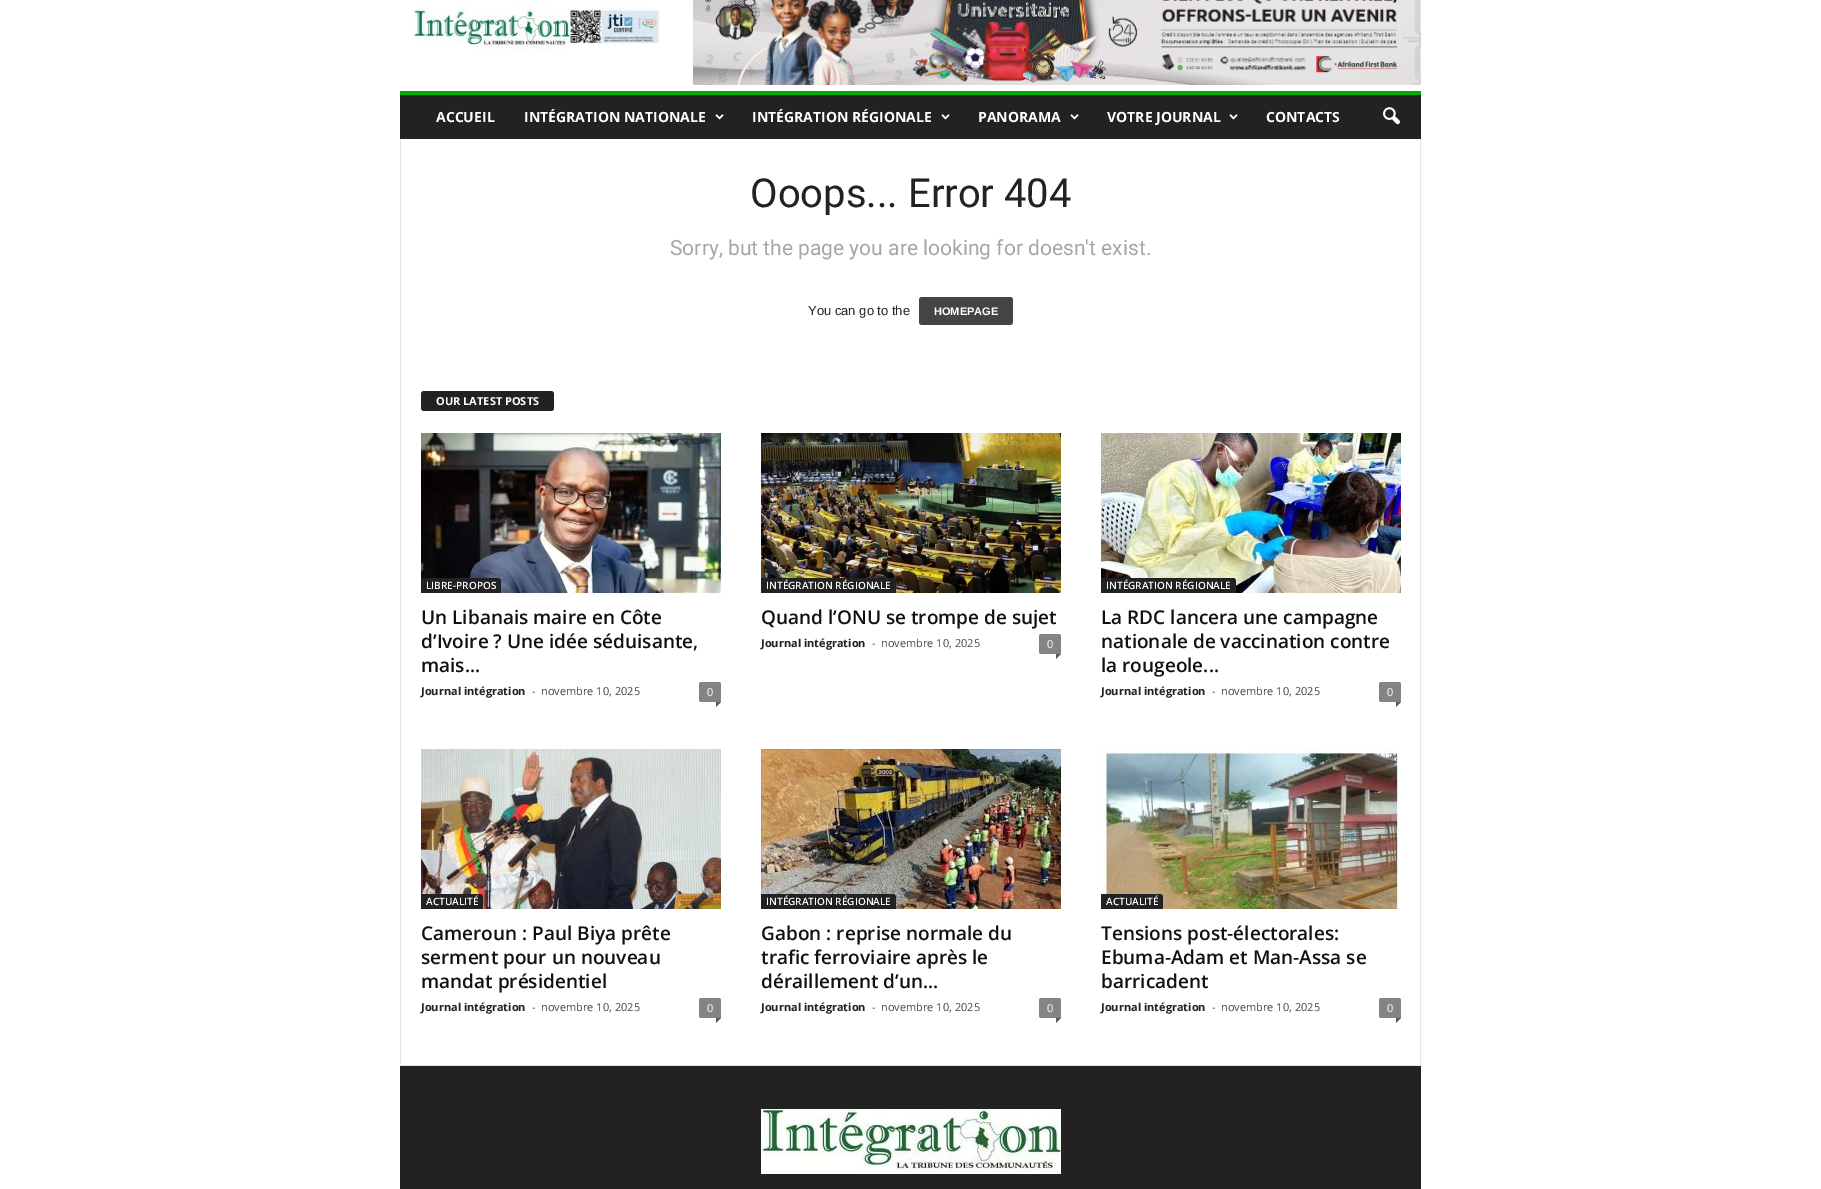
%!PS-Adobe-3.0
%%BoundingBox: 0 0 1821 1189
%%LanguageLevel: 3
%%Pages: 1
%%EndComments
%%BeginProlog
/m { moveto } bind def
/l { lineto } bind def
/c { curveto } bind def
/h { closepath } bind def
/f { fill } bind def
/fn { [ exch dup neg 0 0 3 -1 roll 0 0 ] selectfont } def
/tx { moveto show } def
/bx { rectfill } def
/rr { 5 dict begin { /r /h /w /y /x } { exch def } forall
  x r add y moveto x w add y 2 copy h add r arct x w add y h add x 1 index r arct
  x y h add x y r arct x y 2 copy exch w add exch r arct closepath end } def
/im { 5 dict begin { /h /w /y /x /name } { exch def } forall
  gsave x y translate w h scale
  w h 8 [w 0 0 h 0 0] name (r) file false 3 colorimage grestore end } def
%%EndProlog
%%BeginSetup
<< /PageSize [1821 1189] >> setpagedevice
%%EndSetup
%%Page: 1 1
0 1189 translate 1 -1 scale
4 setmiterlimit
1 setgray
0 0 1821 1189 bx
(image0.raw) 414 1 247 50 im
(image1.raw) 693 0 728 85 im
0.133 setgray
400 95 1021 44 bx
0.008 0.678 0 setrgbcolor
400 91 1021 4 bx
/OpenSans-Bold 14 fn
1 setgray
(ACCUEIL) 436 122 tx
(INTÉGRATION NATIONALE) 524 122 tx
(image2.raw) 715 114 9 6 im
(INTÉGRATION RÉGIONALE) 752 122 tx
(image2.raw) 941 114 9 6 im
(PANORAMA) 978 122 tx
(image2.raw) 1070 114 9 6 im
(VOTRE JOURNAL) 1107 122 tx
(image2.raw) 1229 114 9 6 im
(CONTACTS) 1266 122 tx
(image3.raw) 1383 107 17 18 im
0.902 setgray
400 1065 1021 1 bx
400 139 1 926 bx
/Roboto-Regular 40 fn
0.133 setgray
(Ooops... Error 404) 750 207 tx
/Roboto-Regular 21 fn
0.651 setgray
(Sorry, but the page you are looking for doesn't exist.) 670 255 tx
/LiberationSans-Regular 13 fn
0.133 setgray
(You can go to the) 808 315 tx
0.267 setgray
919 297 94 28 3 rr f
/LiberationSans-Bold 11 fn
1 setgray
(HOMEPAGE) 934 315 tx
0.133 setgray
421 391 133 20 3 rr f
/OpenSans-Bold 11 fn
1 setgray
(OUR LATEST POSTS) 436 405 tx
(image4.raw) 421 433 300 160 im
0.133 setgray
421 578 m 498 578 l 499.5 578 501 579.5 501 581 c 501 593 l 421 593 l h f
/OpenSans-SemiBold 10 fn
1 setgray
(LIBRE-PROPOS) 426 589 tx
/OpenSans-SemiBold 19 fn
0.067 setgray
(Un Libanais maire en Côte) 421 624 tx
(d’Ivoire ? Une idée séduisante,) 421 648 tx
(mais...) 421 672 tx
/OpenSans-Bold 11 fn
0.133 setgray
(Journal intégration) 421 695 tx
/OpenSans-Regular 11 fn
0.267 setgray
(-) 532 695 tx
(novembre 10, 2025) 541 695 tx
0.518 setgray
701 682 m 719 682 l 720 682 721 683 721 684 c 721 702 l 701 702 l 700 702 699 701 699 700 c 699 684 l 699 683 700 682 701 682 c h f
1 setgray
(0) 707 696 tx
0.357 setgray
716 702 m 721 702 l 716 707 l h f
(image5.raw) 761 433 300 160 im
0.133 setgray
761 578 m 893 578 l 894.5 578 896 579.5 896 581 c 896 593 l 761 593 l h f
/OpenSans-SemiBold 10 fn
1 setgray
(INTÉGRATION RÉGIONALE) 766 589 tx
/OpenSans-SemiBold 19 fn
0.067 setgray
(Quand l’ONU se trompe de sujet) 761 624 tx
/OpenSans-Bold 11 fn
0.133 setgray
(Journal intégration) 761 647 tx
/OpenSans-Regular 11 fn
0.267 setgray
(-) 872 647 tx
(novembre 10, 2025) 881 647 tx
0.518 setgray
1041 634 m 1059 634 l 1060 634 1061 635 1061 636 c 1061 654 l 1041 654 l 1040 654 1039 653 1039 652 c 1039 636 l 1039 635 1040 634 1041 634 c h f
1 setgray
(0) 1047 648 tx
0.357 setgray
1056 654 m 1061 654 l 1056 659 l h f
(image6.raw) 1101 433 300 160 im
0.133 setgray
1101 578 m 1233 578 l 1234.5 578 1236 579.5 1236 581 c 1236 593 l 1101 593 l h f
/OpenSans-SemiBold 10 fn
1 setgray
(INTÉGRATION RÉGIONALE) 1106 589 tx
/OpenSans-SemiBold 19 fn
0.067 setgray
(La RDC lancera une campagne) 1101 624 tx
(nationale de vaccination contre) 1101 648 tx
(la rougeole...) 1101 672 tx
/OpenSans-Bold 11 fn
0.133 setgray
(Journal intégration) 1101 695 tx
/OpenSans-Regular 11 fn
0.267 setgray
(-) 1212 695 tx
(novembre 10, 2025) 1221 695 tx
0.518 setgray
1381 682 m 1399 682 l 1400 682 1401 683 1401 684 c 1401 702 l 1381 702 l 1380 702 1379 701 1379 700 c 1379 684 l 1379 683 1380 682 1381 682 c h f
1 setgray
(0) 1387 696 tx
0.357 setgray
1396 702 m 1401 702 l 1396 707 l h f
(image7.raw) 421 749 300 160 im
0.133 setgray
421 894 m 480 894 l 481.5 894 483 895.5 483 897 c 483 909 l 421 909 l h f
/OpenSans-SemiBold 10 fn
1 setgray
(ACTUALITÉ) 426 905 tx
/OpenSans-SemiBold 19 fn
0.067 setgray
(Cameroun : Paul Biya prête) 421 940 tx
(serment pour un nouveau) 421 964 tx
(mandat présidentiel) 421 988 tx
/OpenSans-Bold 11 fn
0.133 setgray
(Journal intégration) 421 1011 tx
/OpenSans-Regular 11 fn
0.267 setgray
(-) 532 1011 tx
(novembre 10, 2025) 541 1011 tx
0.518 setgray
701 998 m 719 998 l 720 998 721 999 721 1000 c 721 1018 l 701 1018 l 700 1018 699 1017 699 1016 c 699 1000 l 699 999 700 998 701 998 c h f
1 setgray
(0) 707 1012 tx
0.357 setgray
716 1018 m 721 1018 l 716 1023 l h f
(image8.raw) 761 749 300 160 im
0.133 setgray
761 894 m 893 894 l 894.5 894 896 895.5 896 897 c 896 909 l 761 909 l h f
/OpenSans-SemiBold 10 fn
1 setgray
(INTÉGRATION RÉGIONALE) 766 905 tx
/OpenSans-SemiBold 19 fn
0.067 setgray
(Gabon : reprise normale du) 761 940 tx
(trafic ferroviaire après le) 761 964 tx
(déraillement d’un...) 761 988 tx
/OpenSans-Bold 11 fn
0.133 setgray
(Journal intégration) 761 1011 tx
/OpenSans-Regular 11 fn
0.267 setgray
(-) 872 1011 tx
(novembre 10, 2025) 881 1011 tx
0.518 setgray
1041 998 m 1059 998 l 1060 998 1061 999 1061 1000 c 1061 1018 l 1041 1018 l 1040 1018 1039 1017 1039 1016 c 1039 1000 l 1039 999 1040 998 1041 998 c h f
1 setgray
(0) 1047 1012 tx
0.357 setgray
1056 1018 m 1061 1018 l 1056 1023 l h f
(image9.raw) 1101 749 300 160 im
0.133 setgray
1101 894 m 1160 894 l 1161.5 894 1163 895.5 1163 897 c 1163 909 l 1101 909 l h f
/OpenSans-SemiBold 10 fn
1 setgray
(ACTUALITÉ) 1106 905 tx
/OpenSans-SemiBold 19 fn
0.067 setgray
(Tensions post-électorales:) 1101 940 tx
(Ebuma-Adam et Man-Assa se) 1101 964 tx
(barricadent) 1101 988 tx
/OpenSans-Bold 11 fn
0.133 setgray
(Journal intégration) 1101 1011 tx
/OpenSans-Regular 11 fn
0.267 setgray
(-) 1212 1011 tx
(novembre 10, 2025) 1221 1011 tx
0.518 setgray
1381 998 m 1399 998 l 1400 998 1401 999 1401 1000 c 1401 1018 l 1381 1018 l 1380 1018 1379 1017 1379 1016 c 1379 1000 l 1379 999 1380 998 1381 998 c h f
1 setgray
(0) 1387 1012 tx
0.357 setgray
1396 1018 m 1401 1018 l 1396 1023 l h f
0.902 setgray
1420 139 1 926 bx
0.133 setgray
400 1066 1021 123 bx
(image10.raw) 761 1109 300 65 im
showpage
%%EOF
